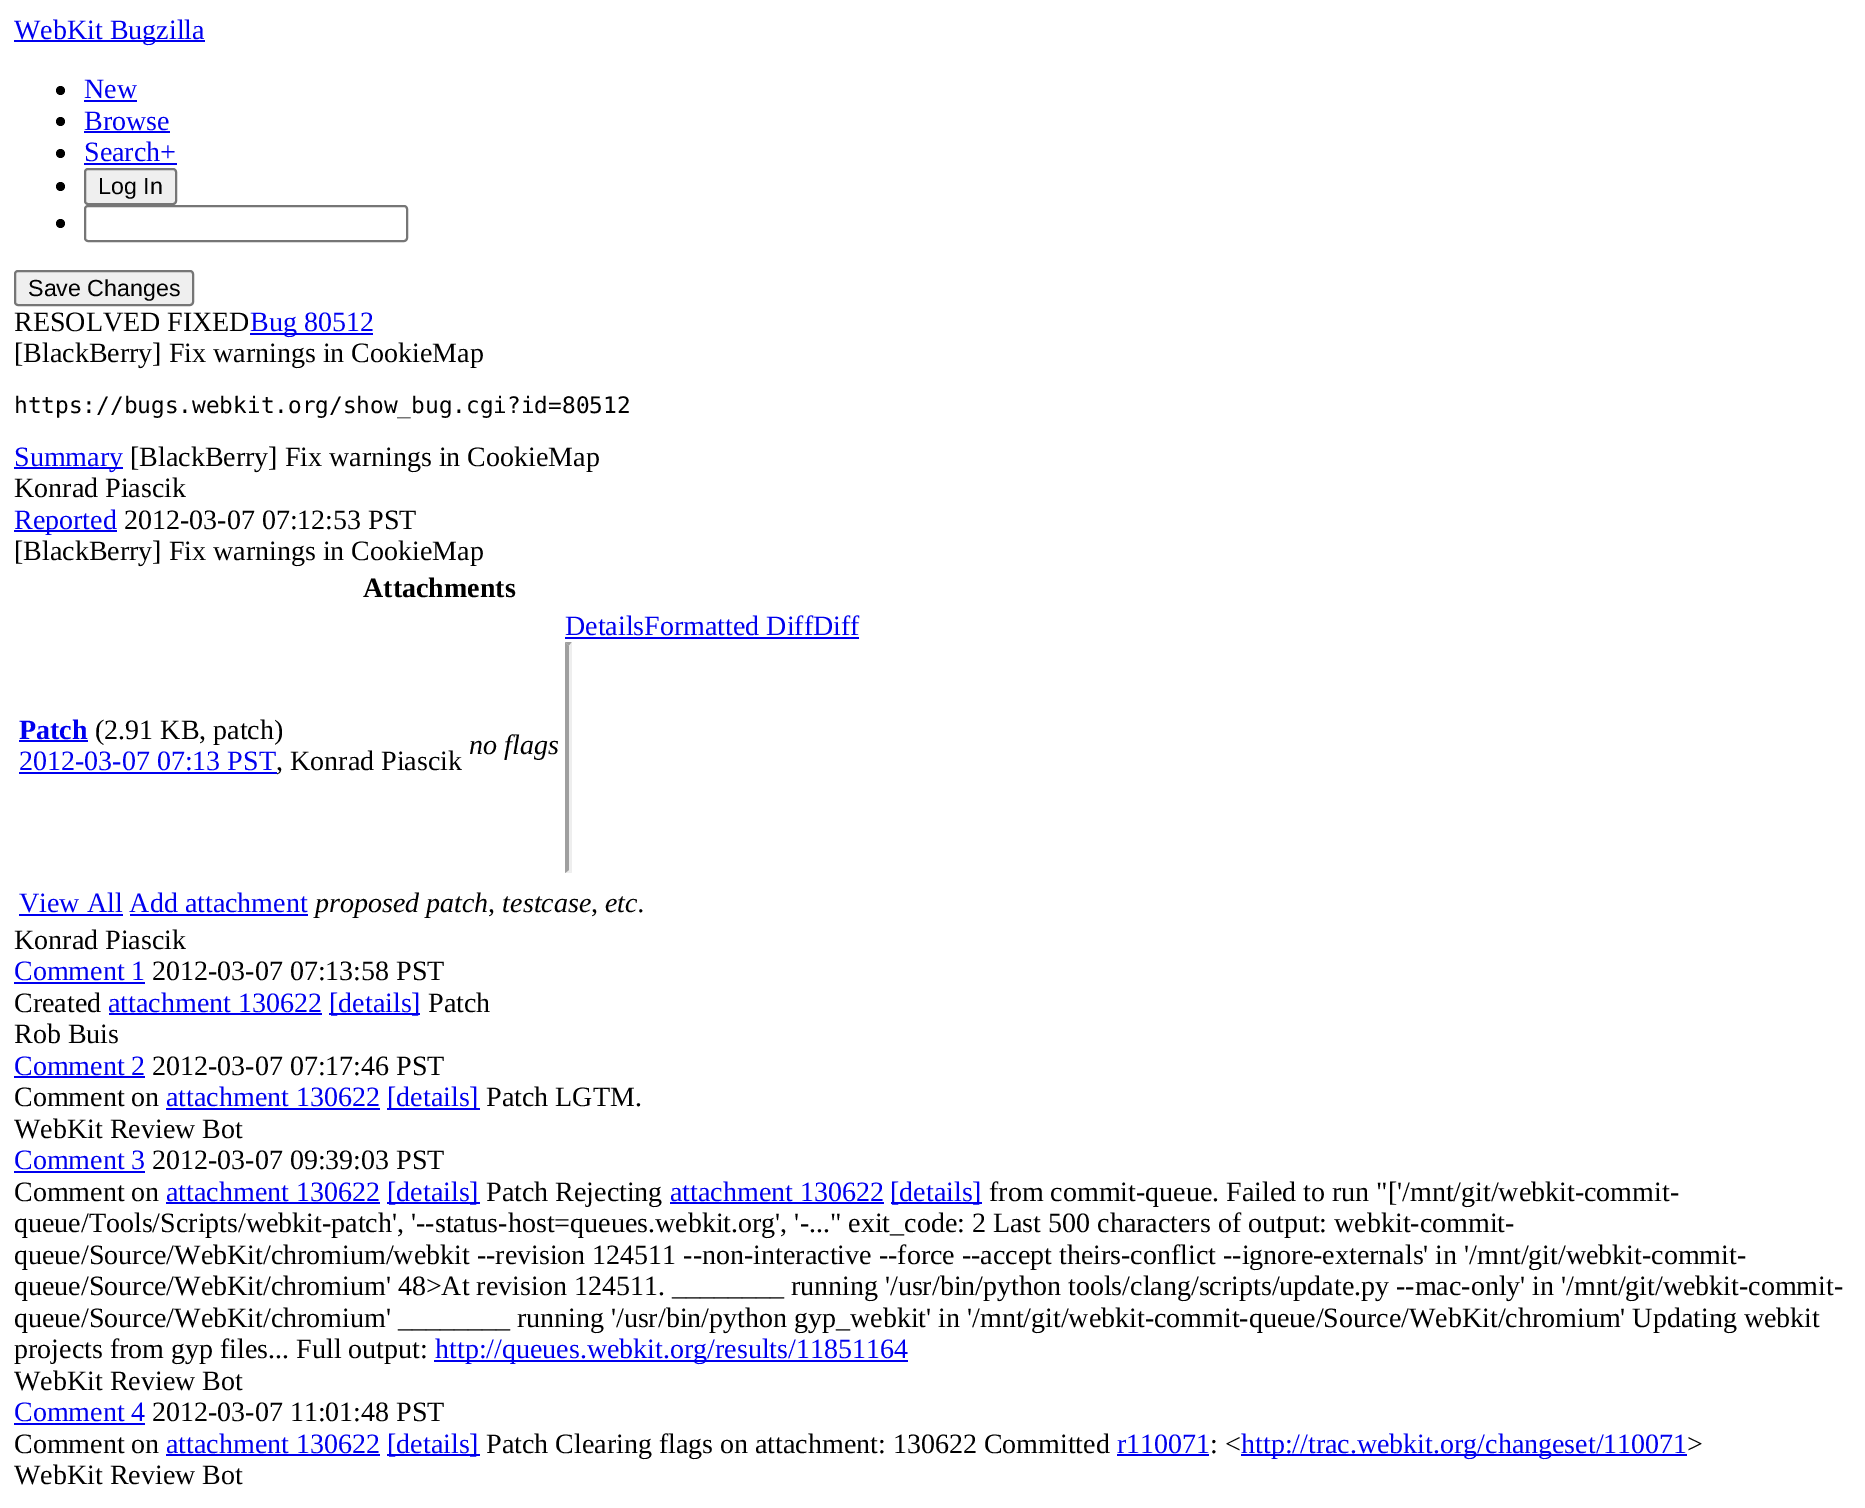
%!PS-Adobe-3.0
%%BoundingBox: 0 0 1865 1508
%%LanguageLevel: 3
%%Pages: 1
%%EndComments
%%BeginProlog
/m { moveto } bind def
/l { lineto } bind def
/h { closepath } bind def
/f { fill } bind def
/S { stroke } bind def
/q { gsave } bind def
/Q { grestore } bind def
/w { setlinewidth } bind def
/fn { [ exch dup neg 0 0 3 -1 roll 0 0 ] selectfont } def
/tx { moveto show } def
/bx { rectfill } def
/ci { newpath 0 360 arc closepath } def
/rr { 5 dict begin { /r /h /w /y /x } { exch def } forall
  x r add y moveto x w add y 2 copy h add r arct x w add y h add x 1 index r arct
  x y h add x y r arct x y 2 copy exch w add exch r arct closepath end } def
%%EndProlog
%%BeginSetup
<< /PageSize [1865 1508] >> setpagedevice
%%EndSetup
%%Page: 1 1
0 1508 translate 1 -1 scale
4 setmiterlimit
1 setgray
0 0 1865 1508 bx
0 0 0.933 setrgbcolor
14 40 191 2 bx
/LiberationSerif-Regular 28 fn
(WebKit Bugzilla) 14 39 tx
0 setgray
60.5 90.5 4.5 ci f
0 0 0.933 setrgbcolor
(New) 84 98 tx
84 100 53 2 bx
0 setgray
60.5 121.5 4.5 ci f
0 0 0.933 setrgbcolor
(Browse) 84 130 tx
84 131 86 2 bx
0 setgray
60.5 153.5 4.5 ci f
0 0 0.933 setrgbcolor
(Search+) 84 161 tx
84 163 93 2 bx
0 setgray
60.5 186.5 4.5 ci f
0.937 setgray
85 169 91 35 3 rr q f Q
0.463 setgray
2 w
S
/LiberationSans-Regular 23.25 fn
0 setgray
(Log In) 98 194 tx
60.5 223.5 4.5 ci f
0.463 setgray
85 206 322 35 3 rr S
0.937 setgray
15 271 178 34 3 rr q f Q
0.463 setgray
S
0 setgray
(Save Changes) 28 296 tx
/LiberationSerif-Regular 28 fn
(RESOLVED FIXED) 14 331 tx
0 0 0.933 setrgbcolor
250 333 123 2 bx
(Bug 80512) 250 331 tx
0 setgray
([BlackBerry] Fix warnings in CookieMap) 14 362 tx
/DejaVuSansMono-Regular 22.75 fn
(https://bugs.webkit.org/show_bug.cgi?id=80512) 14 413 tx
0 0 0.933 setrgbcolor
14 467 109 2 bx
/LiberationSerif-Regular 28 fn
(Summary) 14 466 tx
0 setgray
([BlackBerry] Fix warnings in CookieMap) 130 466 tx
(Konrad Piascik) 14 497 tx
0 0 0.933 setrgbcolor
14 530 103 2 bx
(Reported) 14 529 tx
0 setgray
(2012-03-07 07:12:53 PST) 124 529 tx
([BlackBerry] Fix warnings in CookieMap) 14 560 tx
/LiberationSerif-Bold 28 fn
(Attachments) 363 597 tx
/LiberationSerif-Regular 28 fn
0 0 0.933 setrgbcolor
(DetailsFormatted DiffDiff) 565 635 tx
565 637 294 2 bx
0.624 setgray
565 642 m 572 642 l 569 646 l h f
0.933 setgray
572 642 m 572 873 l 569 870 l 569 646 l h f
572 873 m 565 873 l 569 870 l h f
0.624 setgray
565 873 m 565 642 l 569 646 l 569 870 l h f
/LiberationSerif-Bold 28 fn
0 0 0.933 setrgbcolor
(Patch) 19 739 tx
19 740 69 2 bx
/LiberationSerif-Regular 28 fn
0 setgray
(\(2.91 KB, patch\)) 95 739 tx
0 0 0.933 setrgbcolor
(2012-03-07 07:13 PST) 19 770 tx
19 772 258 2 bx
0 setgray
(, Konrad Piascik) 276 770 tx
/LiberationSerif-Italic 28 fn
(no flags) 469 754 tx
/LiberationSerif-Regular 28 fn
0 0 0.933 setrgbcolor
(View All Add attachment) 19 912 tx
19 914 104 2 bx
/LiberationSerif-Italic 28 fn
0 setgray
(proposed patch, testcase, etc.) 315 912 tx
0 0 0.933 setrgbcolor
130 914 178 2 bx
/LiberationSerif-Regular 28 fn
0 setgray
(Konrad Piascik) 14 949 tx
0 0 0.933 setrgbcolor
(Comment 1) 14 980 tx
14 982 131 2 bx
0 setgray
(2012-03-07 07:13:58 PST) 152 980 tx
(Created) 14 1012 tx
0 0 0.933 setrgbcolor
(attachment 130622) 108 1012 tx
109 1013 213 2 bx
329 1013 91 2 bx
([details]) 329 1012 tx
0 setgray
(Patch) 428 1012 tx
(Rob Buis) 14 1043 tx
0 0 0.933 setrgbcolor
(Comment 2) 14 1075 tx
14 1076 131 2 bx
0 setgray
(2012-03-07 07:17:46 PST) 152 1075 tx
(Comment on) 14 1106 tx
0 0 0.933 setrgbcolor
(attachment 130622) 166 1106 tx
166 1108 214 2 bx
387 1108 93 2 bx
([details]) 387 1106 tx
0 setgray
(Patch LGTM.) 486 1106 tx
(WebKit Review Bot) 14 1138 tx
0 0 0.933 setrgbcolor
(Comment 3) 14 1169 tx
14 1171 131 2 bx
0 setgray
(2012-03-07 09:39:03 PST) 152 1169 tx
(Comment on) 14 1201 tx
0 0 0.933 setrgbcolor
(attachment 130622) 166 1201 tx
166 1202 214 2 bx
387 1202 93 2 bx
([details]) 387 1201 tx
0 setgray
(Patch Rejecting) 486 1201 tx
0 0 0.933 setrgbcolor
(attachment 130622) 670 1201 tx
670 1202 214 2 bx
891 1202 91 2 bx
([details]) 890 1201 tx
0 setgray
(from commit-queue. Failed to run "['/mnt/git/webkit-commit-) 989 1201 tx
(queue/Tools/Scripts/webkit-patch', '--status-host=queues.webkit.org', '-..." exit_code: 2 Last 500 characters of output: webkit-commit-) 14 1232 tx
(queue/Source/WebKit/chromium/webkit --revision 124511 --non-interactive --force --accept theirs-conflict --ignore-externals' in '/mnt/git/webkit-commit-) 14 1264 tx
(queue/Source/WebKit/chromium' 48>At revision 124511. ________ running '/usr/bin/python tools/clang/scripts/update.py --mac-only' in '/mnt/git/webkit-commit-) 14 1295 tx
(queue/Source/WebKit/chromium' ________ running '/usr/bin/python gyp_webkit' in '/mnt/git/webkit-commit-queue/Source/WebKit/chromium' Updating webkit) 14 1327 tx
(projects from gyp files... Full output:) 14 1358 tx
0 0 0.933 setrgbcolor
434 1360 474 2 bx
(http://queues.webkit.org/results/11851164) 435 1358 tx
0 setgray
(WebKit Review Bot) 14 1390 tx
0 0 0.933 setrgbcolor
(Comment 4) 14 1421 tx
14 1423 131 2 bx
0 setgray
(2012-03-07 11:01:48 PST) 152 1421 tx
(Comment on) 14 1453 tx
0 0 0.933 setrgbcolor
(attachment 130622) 166 1453 tx
166 1454 214 2 bx
387 1454 93 2 bx
([details]) 387 1453 tx
0 setgray
(Patch Clearing flags on attachment: 130622 Committed) 486 1453 tx
0 0 0.933 setrgbcolor
(r110071) 1117 1453 tx
1117 1454 92 2 bx
0 setgray
(: <) 1210 1453 tx
0 0 0.933 setrgbcolor
1241 1454 446 2 bx
(http://trac.webkit.org/changeset/110071) 1241 1453 tx
0 setgray
(>) 1687 1453 tx
(WebKit Review Bot) 14 1484 tx
showpage
%%EOF
